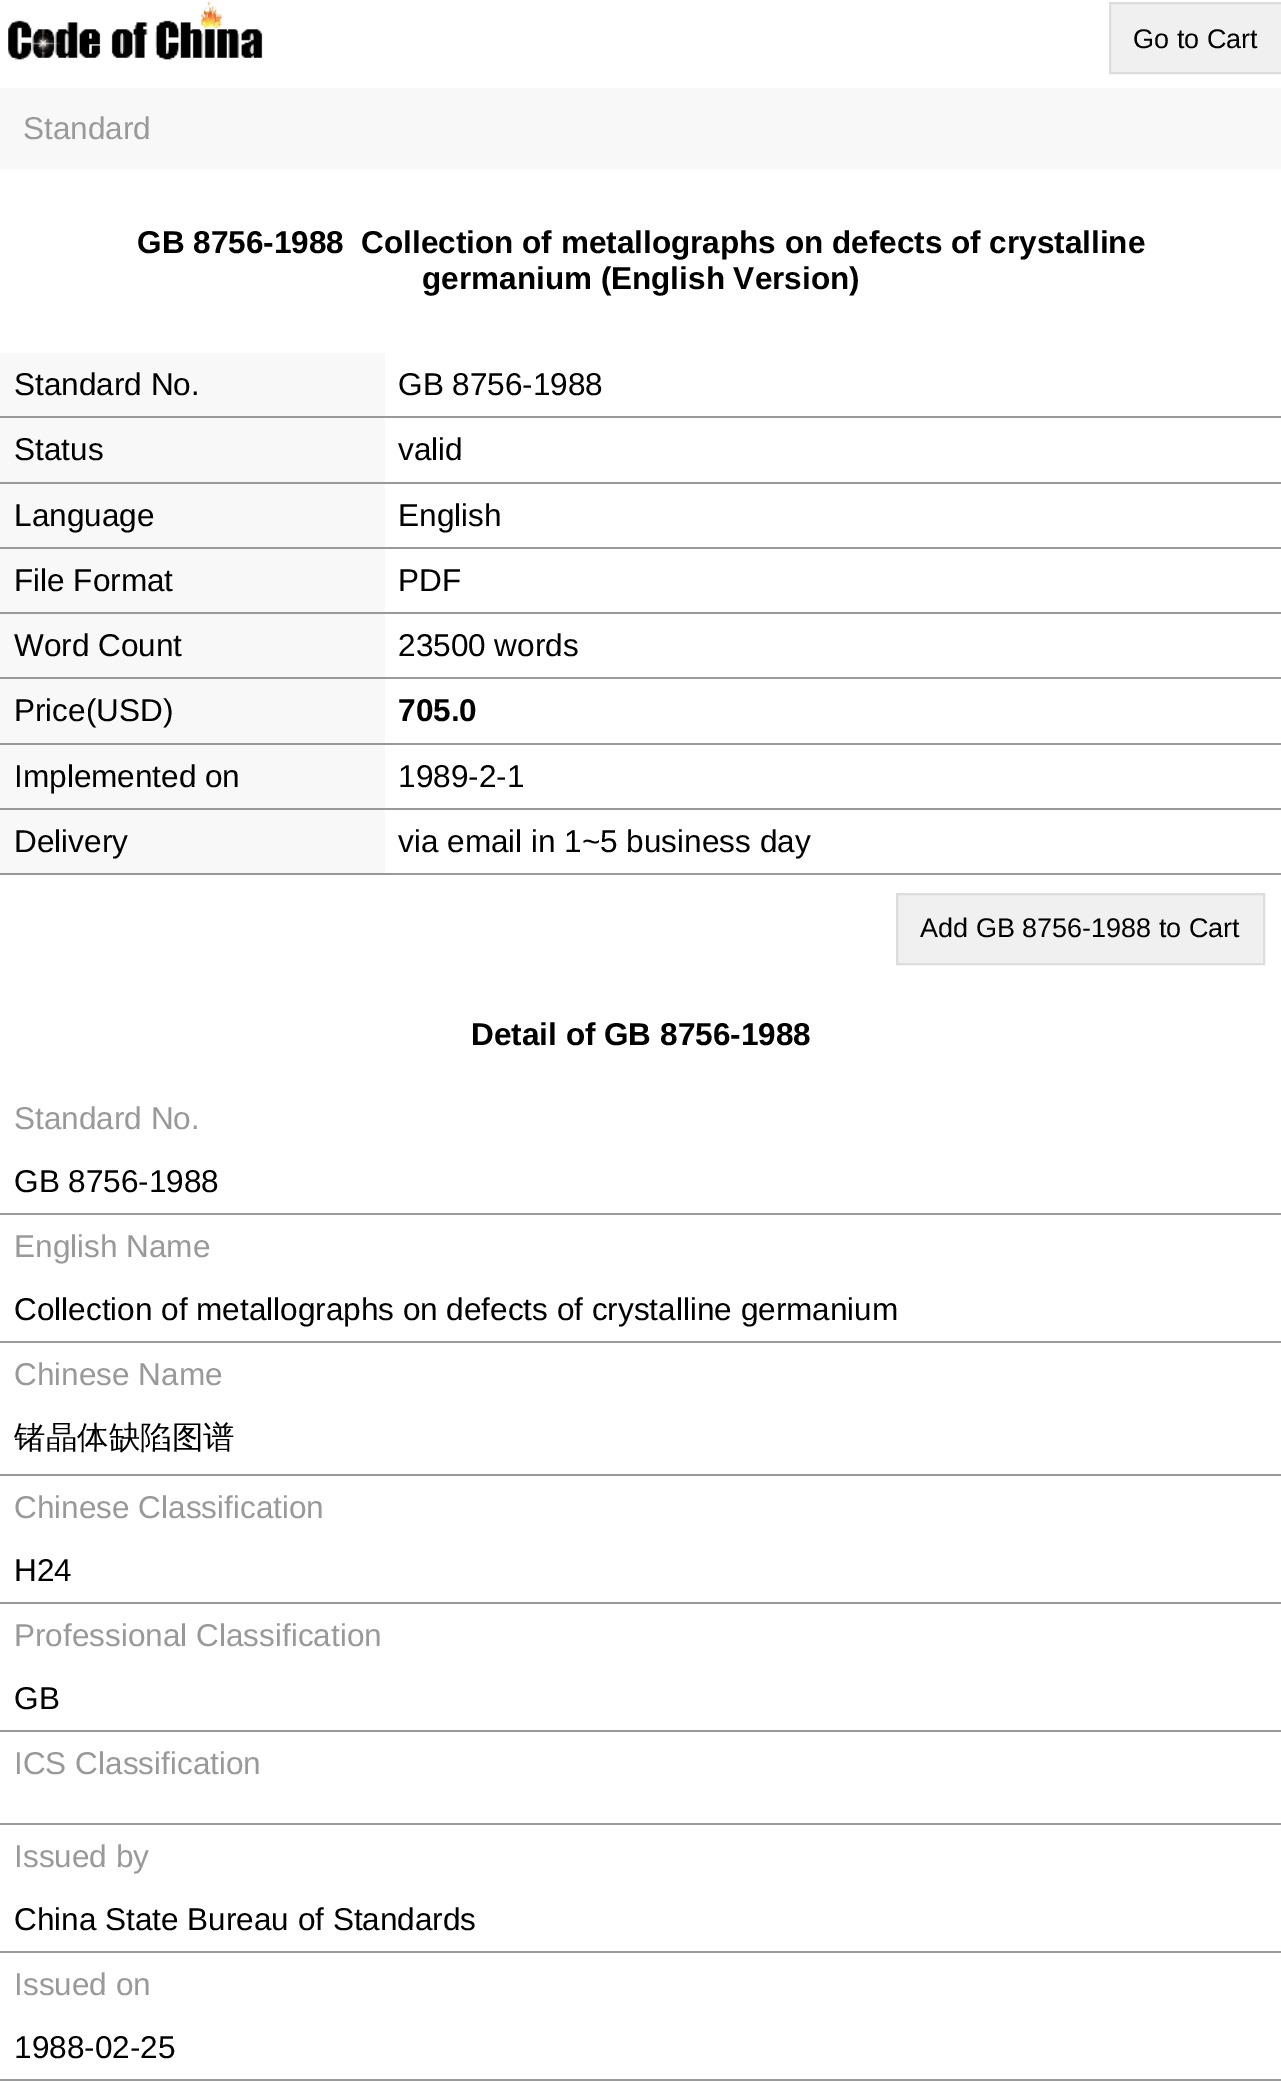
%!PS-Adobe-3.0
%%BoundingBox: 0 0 1281 2081
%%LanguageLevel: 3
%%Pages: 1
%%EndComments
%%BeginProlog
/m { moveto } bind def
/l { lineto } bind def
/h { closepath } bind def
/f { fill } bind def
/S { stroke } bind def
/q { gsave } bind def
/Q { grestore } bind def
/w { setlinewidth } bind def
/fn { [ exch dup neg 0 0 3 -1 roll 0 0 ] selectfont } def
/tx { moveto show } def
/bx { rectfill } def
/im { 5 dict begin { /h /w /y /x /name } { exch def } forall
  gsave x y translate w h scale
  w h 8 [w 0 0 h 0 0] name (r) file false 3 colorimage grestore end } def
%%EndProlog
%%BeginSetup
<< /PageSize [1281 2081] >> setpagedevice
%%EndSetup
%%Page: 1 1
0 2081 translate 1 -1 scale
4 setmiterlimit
1 setgray
0 0 1281 2081 bx
(image0.raw) 8 0 255 60 im
0.941 setgray
1110 3 m 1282 3 l 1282 73 l 1110 73 l h q f Q
0.867 setgray
2 w
S
/LiberationSans-Regular 27 fn
0 setgray
(Go to Cart) 1133 48 tx
0.973 setgray
0 88 1281 81 bx
/LiberationSans-Regular 31.5 fn
0.6 setgray
(Standard) 23 139 tx
/LiberationSans-Bold 31.5 fn
0 setgray
(GB 8756-1988  Collection of metallographs on defects of crystalline) 137 253 tx
(germanium \(English Version\)) 422 289 tx
0.973 setgray
0 353 385 63 bx
/LiberationSans-Regular 31.5 fn
0 setgray
(Standard No.) 14 395 tx
0.6 setgray
0 416 1281 2 bx
0 setgray
(GB 8756-1988) 398 395 tx
0.973 setgray
0 418 385 64 bx
0 setgray
(Status) 14 460 tx
0.6 setgray
0 482 1281 2 bx
0 setgray
(valid) 398 460 tx
0.973 setgray
0 484 385 63 bx
0 setgray
(Language) 14 526 tx
0.6 setgray
0 547 1281 2 bx
0 setgray
(English) 398 526 tx
0.973 setgray
0 549 385 63 bx
0 setgray
(File Format) 14 591 tx
0.6 setgray
0 612 1281 2 bx
0 setgray
(PDF) 398 591 tx
0.973 setgray
0 614 385 63 bx
0 setgray
(Word Count) 14 656 tx
0.6 setgray
0 677 1281 2 bx
0 setgray
(23500 words) 398 656 tx
0.973 setgray
0 679 385 64 bx
0 setgray
(Price\(USD\)) 14 721 tx
0.6 setgray
0 743 1281 2 bx
/LiberationSans-Bold 31.5 fn
0 setgray
(705.0) 398 721 tx
0.973 setgray
0 745 385 63 bx
/LiberationSans-Regular 31.5 fn
0 setgray
(Implemented on) 14 787 tx
0.6 setgray
0 808 1281 2 bx
0 setgray
(1989-2-1) 398 787 tx
0.973 setgray
0 810 385 63 bx
0 setgray
(Delivery) 14 852 tx
0.6 setgray
0 873 1281 2 bx
0 setgray
(via email in 1~5 business day) 398 852 tx
0.941 setgray
897 894 m 1264 894 l 1264 964 l 897 964 l h q f Q
0.867 setgray
S
/LiberationSans-Regular 27 fn
0 setgray
(Add GB 8756-1988 to Cart) 920 937 tx
/LiberationSans-Bold 31.5 fn
(Detail of GB 8756-1988) 471 1045 tx
/LiberationSans-Regular 31.5 fn
0.6 setgray
(Standard No.) 14 1129 tx
0 1213 1281 2 bx
0 setgray
(GB 8756-1988) 14 1192 tx
0.6 setgray
(English Name) 14 1257 tx
0 1341 1281 2 bx
0 setgray
(Collection of metallographs on defects of crystalline germanium) 14 1320 tx
0.6 setgray
(Chinese Name) 14 1385 tx
0 1474 1281 2 bx
/WenQuanYiZenHei-Medium 31.5 fn
0 setgray
(锗晶体缺陷图谱) 14 1448 tx
/LiberationSans-Regular 31.5 fn
0.6 setgray
(Chinese Classification) 14 1518 tx
0 1602 1281 2 bx
0 setgray
(H24) 14 1581 tx
0.6 setgray
(Professional Classification) 14 1646 tx
0 1730 1281 2 bx
0 setgray
(GB) 14 1709 tx
0.6 setgray
(ICS Classification) 14 1774 tx
0 1823 1281 2 bx
(Issued by) 14 1867 tx
0 1951 1281 2 bx
0 setgray
(China State Bureau of Standards) 14 1930 tx
0.6 setgray
(Issued on) 14 1995 tx
0 2079 1281 2 bx
0 setgray
(1988-02-25) 14 2058 tx
showpage
%%EOF
